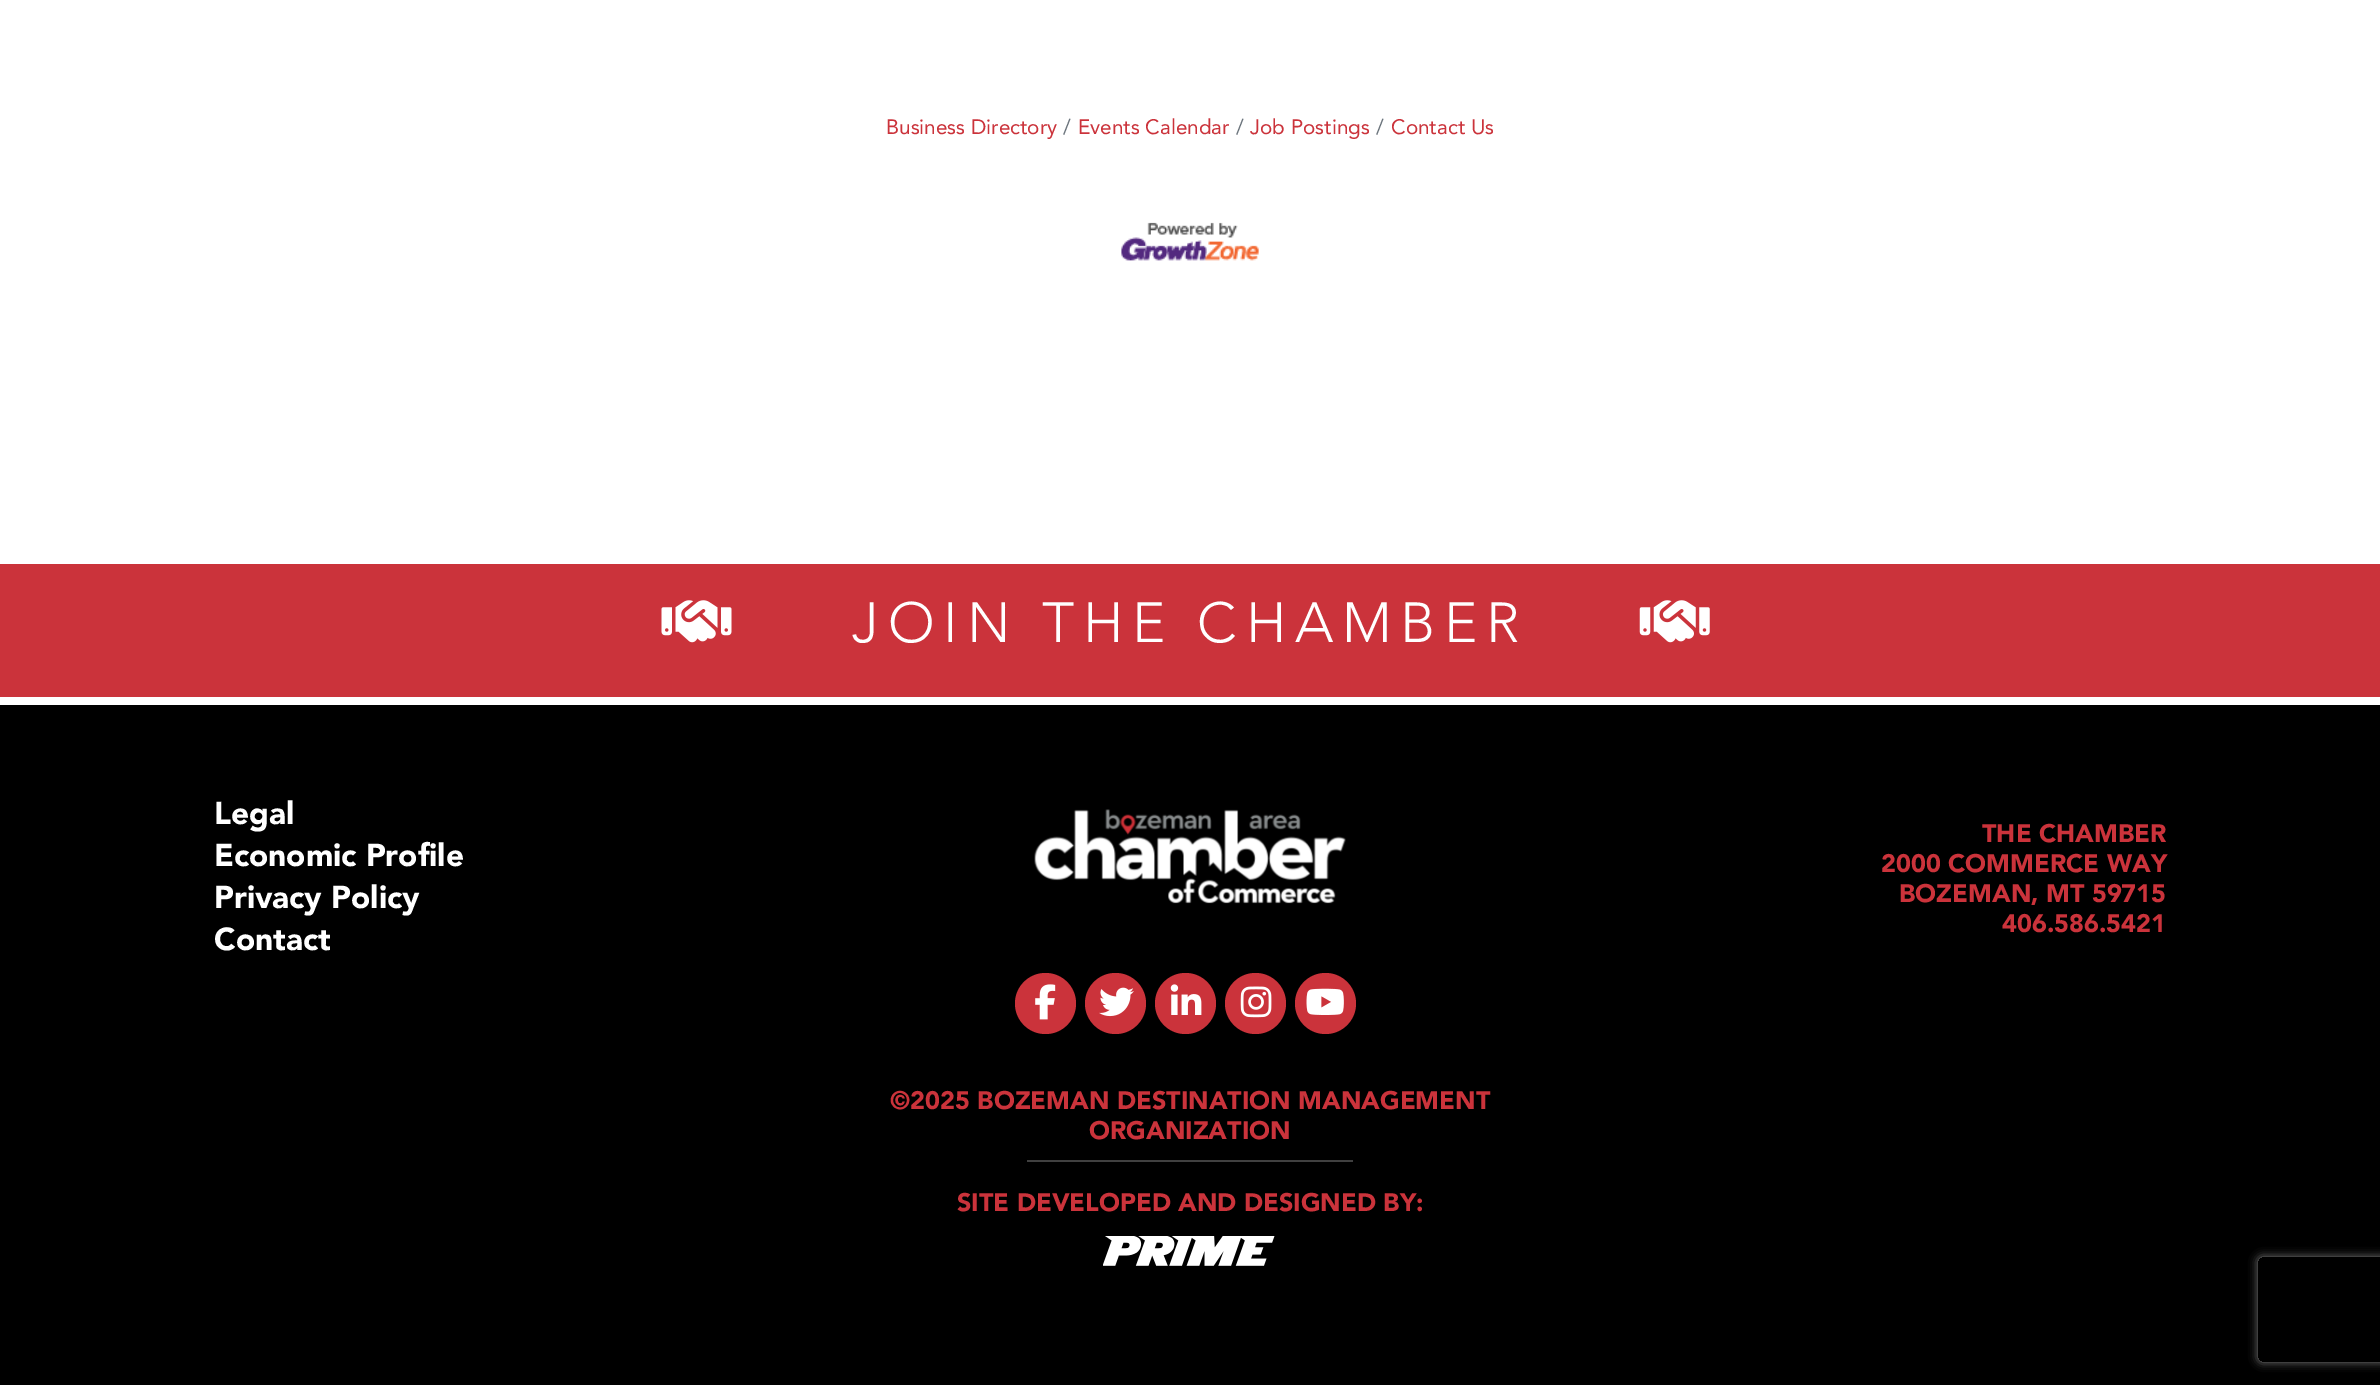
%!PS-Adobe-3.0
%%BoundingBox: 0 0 2380 1385
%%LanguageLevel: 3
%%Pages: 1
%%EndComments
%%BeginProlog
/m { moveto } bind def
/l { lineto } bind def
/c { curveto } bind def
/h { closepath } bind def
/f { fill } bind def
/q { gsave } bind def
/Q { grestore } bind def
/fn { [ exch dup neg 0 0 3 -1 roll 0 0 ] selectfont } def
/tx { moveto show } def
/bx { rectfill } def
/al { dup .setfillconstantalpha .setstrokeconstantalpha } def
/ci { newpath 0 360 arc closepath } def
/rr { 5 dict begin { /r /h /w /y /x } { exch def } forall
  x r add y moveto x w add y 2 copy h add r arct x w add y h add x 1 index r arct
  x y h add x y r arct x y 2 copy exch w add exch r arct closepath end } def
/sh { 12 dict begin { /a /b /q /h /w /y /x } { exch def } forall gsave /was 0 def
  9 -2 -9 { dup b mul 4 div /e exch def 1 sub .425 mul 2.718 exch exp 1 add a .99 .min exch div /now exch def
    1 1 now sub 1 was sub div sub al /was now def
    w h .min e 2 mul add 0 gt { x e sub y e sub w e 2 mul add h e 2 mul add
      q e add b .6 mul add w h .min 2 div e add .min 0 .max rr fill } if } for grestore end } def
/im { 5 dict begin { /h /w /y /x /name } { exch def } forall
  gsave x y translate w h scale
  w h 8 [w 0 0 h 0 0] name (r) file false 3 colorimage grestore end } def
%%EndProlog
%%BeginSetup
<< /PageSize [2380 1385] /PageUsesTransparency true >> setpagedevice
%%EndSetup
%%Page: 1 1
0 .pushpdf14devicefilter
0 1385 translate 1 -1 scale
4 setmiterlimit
1 setgray
0 0 2380 1385 bx
/Avenir-Regular 20.75 fn
0.796 0.2 0.231 setrgbcolor
(Business Directory) 886 134 tx
0.424 0.459 0.49 setrgbcolor
(/) 1063 134 tx
0.796 0.2 0.231 setrgbcolor
(Events Calendar) 1078 134 tx
0.424 0.459 0.49 setrgbcolor
(/) 1236 134 tx
0.796 0.2 0.231 setrgbcolor
(Job Postings) 1250 134 tx
0.424 0.459 0.49 setrgbcolor
(/) 1376 134 tx
0.796 0.2 0.231 setrgbcolor
(Contact Us) 1391 134 tx
(image0.raw) 1121 222 138 39 im
0 564 2380 133 bx
(image1.raw) 661 600 71 43 im
/Avenir-Light 56 fn
1 setgray
852 642 m 8.75 0 (JOIN THE CHAMBER) ashow
(image2.raw) 1639 600 71 43 im
0 setgray
0 705 2380 680 bx
/Avenir-Black 31.5 fn
1 setgray
(Legal) 214 824 tx
(Economic Profile) 214 866 tx
(Privacy Policy) 214 908 tx
(Contact) 214 950 tx
/Avenir-Black 25.2 fn
0.796 0.2 0.231 setrgbcolor
(THE CHAMBER) 1982 842 tx
(2000 COMMERCE WAY) 1881 872 tx
(BOZEMAN, MT 59715) 1899 902 tx
(406.586.5421) 2002 932 tx
(image3.raw) 1034 809 312 95 im
1045.5 1003.5 30.5 ci f
(image4.raw) 1035 984 21 36 im
1115.5 1003.5 30.5 ci f
(image5.raw) 1099 987 35 30 im
1185.5 1003.5 30.5 ci f
(image6.raw) 1170 984 32 31 im
1255.5 1003.5 30.5 ci f
(image7.raw) 1240 986 32 32 im
1325.5 1003.5 30.5 ci f
(image8.raw) 1306 988 38 27 im
(©2025 BOZEMAN DESTINATION MANAGEMENT) 890 1109 tx
(ORGANIZATION) 1089 1139 tx
0.251 setgray
1027 1160 326 2 bx
0.796 0.2 0.231 setrgbcolor
(SITE DEVELOPED AND DESIGNED BY:) 957 1211 tx
(image9.raw) 1103 1236 172 30 im
q
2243 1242 m 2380 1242 l 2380 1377 l 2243 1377 l h 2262 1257 m 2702 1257 l 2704 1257 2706 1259 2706 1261 c 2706 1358 l 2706 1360 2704 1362 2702 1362 c 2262 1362 l 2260 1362 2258 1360 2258 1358 c 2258 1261 l 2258 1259 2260 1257 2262 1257 c h eoclip newpath
0.502 setgray
2258 1257 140 105 4 4.5 1 sh
Q
.poppdf14devicefilter showpage
%%EOF
